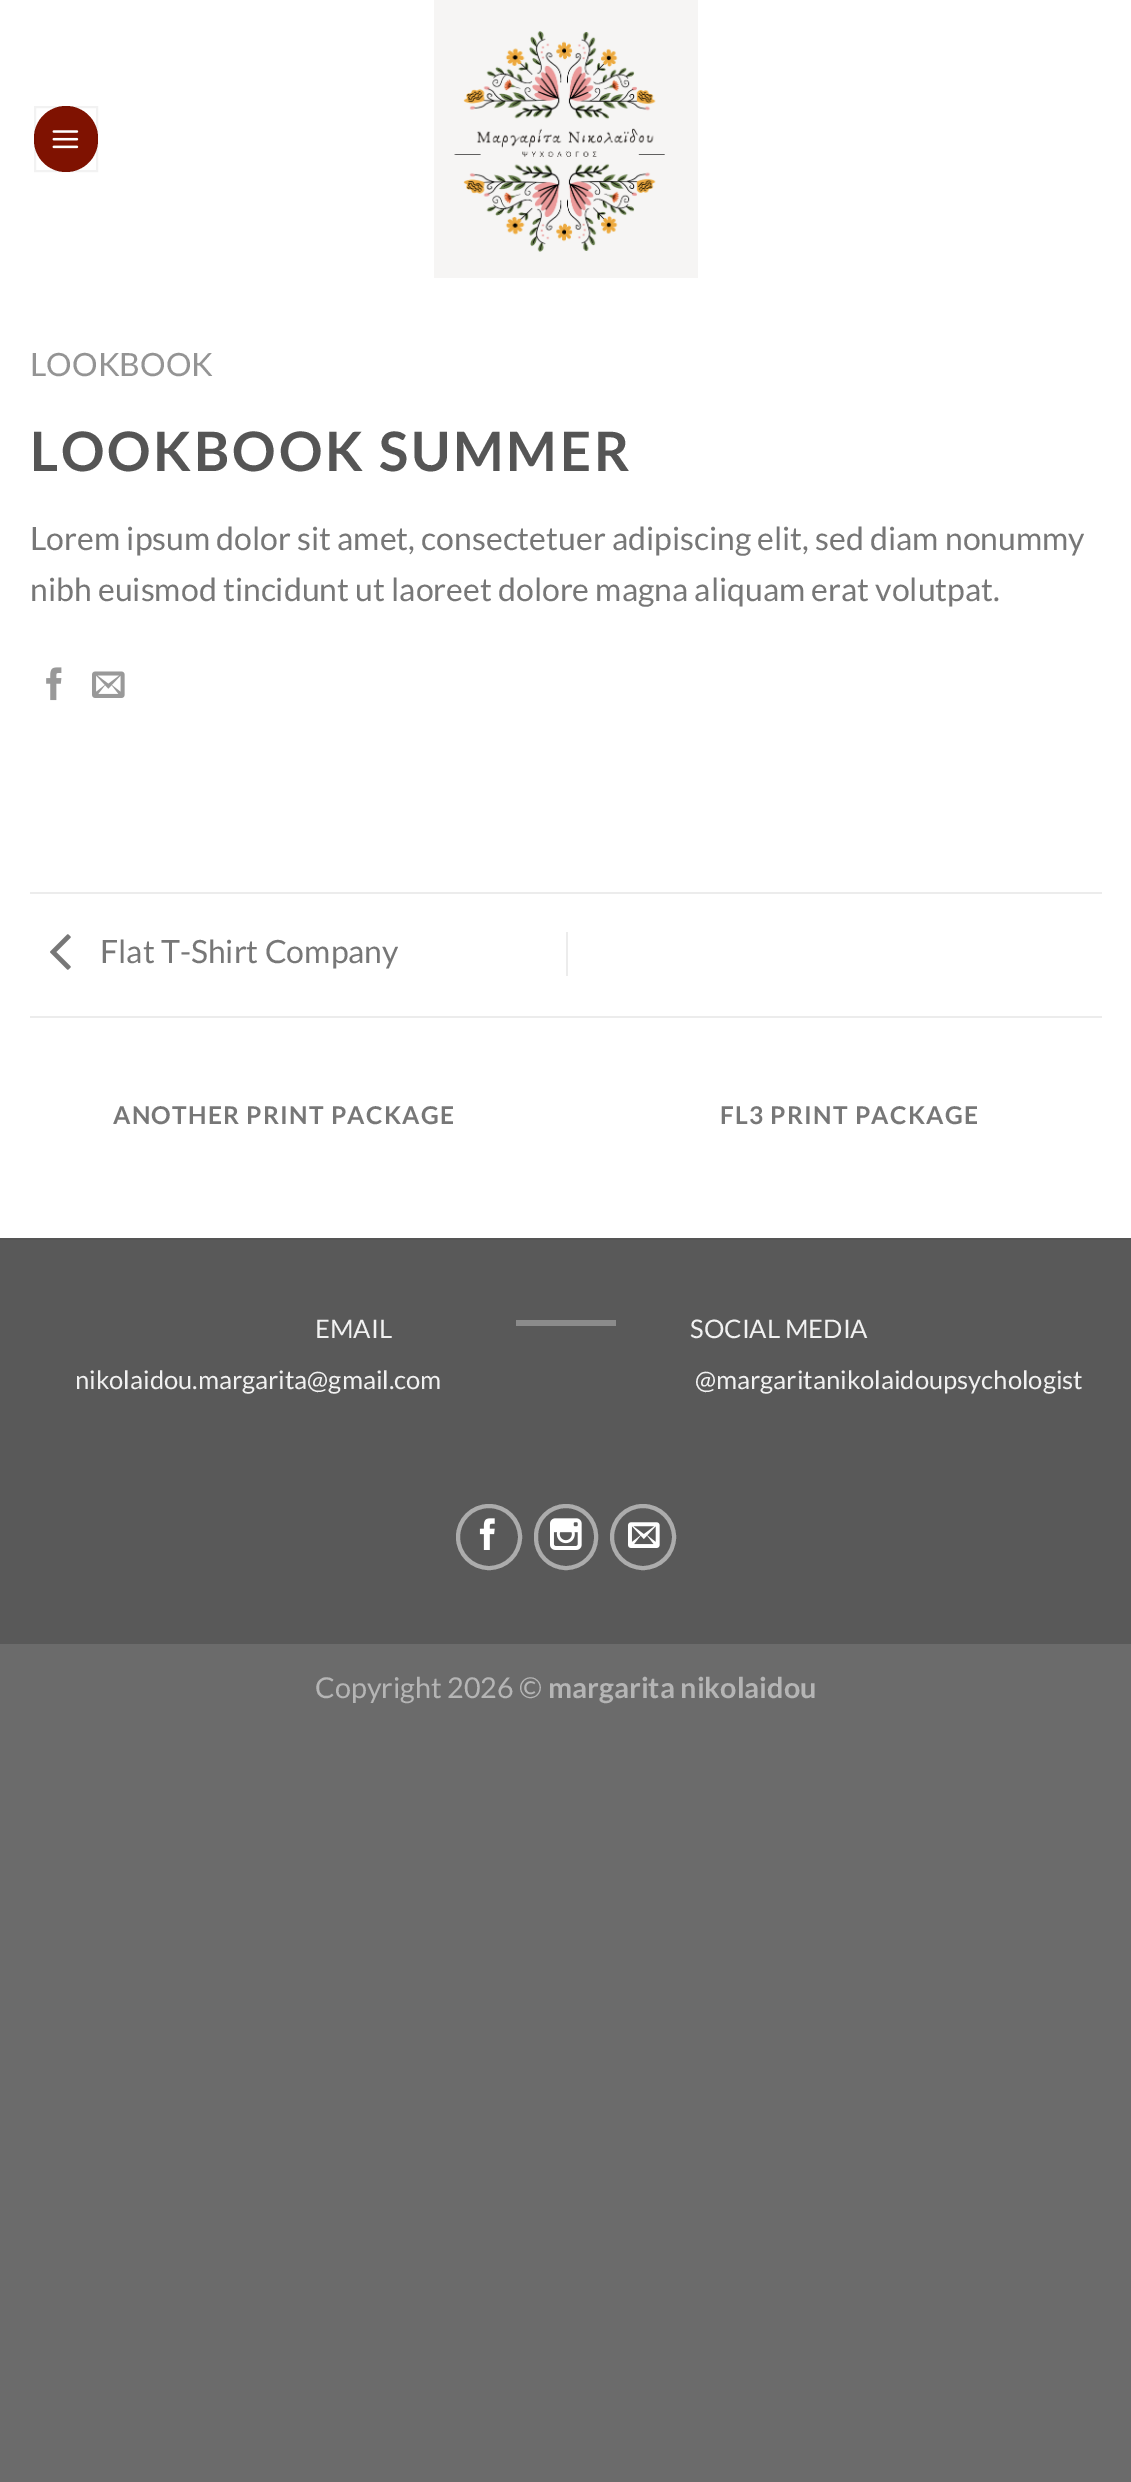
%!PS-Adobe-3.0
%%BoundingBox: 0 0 1131 2482
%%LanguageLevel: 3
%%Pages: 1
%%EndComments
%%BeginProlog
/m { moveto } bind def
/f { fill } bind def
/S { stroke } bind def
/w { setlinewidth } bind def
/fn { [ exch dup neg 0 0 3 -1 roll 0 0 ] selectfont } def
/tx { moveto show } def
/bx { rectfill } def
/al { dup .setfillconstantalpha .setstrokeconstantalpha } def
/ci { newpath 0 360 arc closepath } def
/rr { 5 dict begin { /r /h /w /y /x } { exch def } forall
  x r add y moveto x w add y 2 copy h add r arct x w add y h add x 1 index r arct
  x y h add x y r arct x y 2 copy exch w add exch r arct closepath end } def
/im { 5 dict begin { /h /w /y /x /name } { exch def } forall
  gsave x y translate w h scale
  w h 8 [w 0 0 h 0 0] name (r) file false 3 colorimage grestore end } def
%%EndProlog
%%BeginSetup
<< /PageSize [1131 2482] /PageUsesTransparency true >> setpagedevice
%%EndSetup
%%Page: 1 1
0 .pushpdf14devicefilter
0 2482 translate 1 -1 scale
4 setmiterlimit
0.42 setgray
0 0 1131 2482 bx
1 setgray
0 0 1131 1238 bx
0.498 0.071 0.004 setrgbcolor
34 106 64 66 32 rr f
0.05 al
0 setgray
2 w
35 107 62 64 rectstroke
1 al
(image0.raw) 52 130 27 19 im
(image1.raw) 434 0 264 278 im
/Lato-Regular 32 fn
0.58 setgray
(LOOKBOOK) 30 376 tx
/Lato-Bold 54.4 fn
0.333 setgray
30 471 m 2.75 0 (LOOKBOOK SUMMER) ashow
/Lato-Regular 32 fn
0.467 setgray
(Lorem ipsum dolor sit amet, consectetuer adipiscing elit, sed diam nonummy) 30 550 tx
(nibh euismod tincidunt ut laoreet dolore magna aliquam erat volutpat.) 30 601 tx
(image2.raw) 46 667 16 34 im
(image3.raw) 92 671 33 27 im
0.925 setgray
30 892 1072 2 bx
30 1016 1072 2 bx
(image4.raw) 50 934 21 36 im
0.467 setgray
(Flat T-Shirt Company) 100 963 tx
0.925 setgray
566 932 2 44 bx
/Lato-Bold 24.5 fn
0.467 setgray
113 1124 m 1.25 0 (ANOTHER PRINT PACKAGE) ashow
720 1124 m 1.25 0 (FL3 PRINT PACKAGE) ashow
0.349 setgray
0 1240 1131 404 bx
0.333 setgray
0 1238 1131 2 bx
/Lato-Regular 25.6 fn
0.945 setgray
(EMAIL) 315 1338 tx
(nikolaidou.margarita@gmail.com) 75 1389 tx
0.545 setgray
516 1320 100 6 bx
0.945 setgray
(SOCIAL MEDIA) 690 1338 tx
(@margaritanikolaidoupsychologist) 695 1389 tx
0.675 setgray
4 w
489 1537 31 ci S
(image5.raw) 479 1518 16 32 im
536 1506 60 62 30 rr S
(image6.raw) 550 1518 32 32 im
643 1537 31 ci S
(image7.raw) 628 1522 32 26 im
/Lato-Regular 28.75 fn
0.71 setgray
(Copyright 2026 ©) 315 1698 tx
/Lato-Bold 28.75 fn
(margarita nikolaidou) 548 1698 tx
.poppdf14devicefilter showpage
%%EOF
